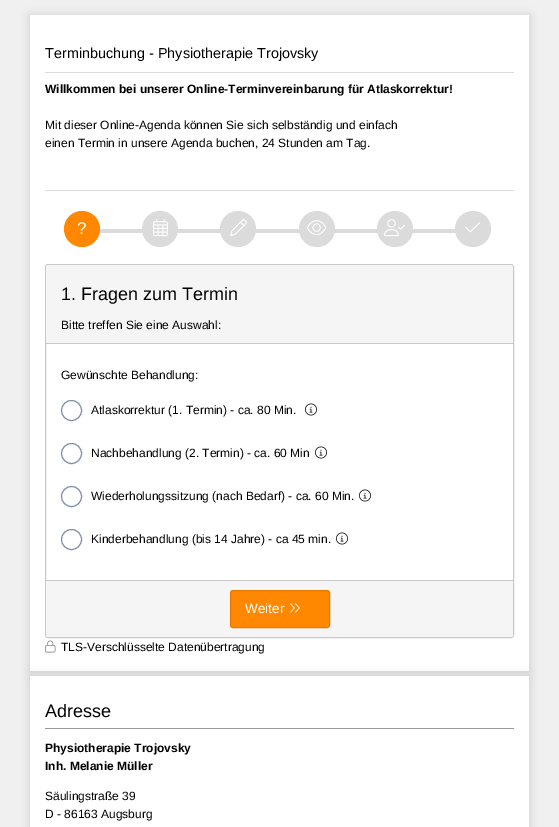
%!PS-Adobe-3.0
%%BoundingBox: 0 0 559 827
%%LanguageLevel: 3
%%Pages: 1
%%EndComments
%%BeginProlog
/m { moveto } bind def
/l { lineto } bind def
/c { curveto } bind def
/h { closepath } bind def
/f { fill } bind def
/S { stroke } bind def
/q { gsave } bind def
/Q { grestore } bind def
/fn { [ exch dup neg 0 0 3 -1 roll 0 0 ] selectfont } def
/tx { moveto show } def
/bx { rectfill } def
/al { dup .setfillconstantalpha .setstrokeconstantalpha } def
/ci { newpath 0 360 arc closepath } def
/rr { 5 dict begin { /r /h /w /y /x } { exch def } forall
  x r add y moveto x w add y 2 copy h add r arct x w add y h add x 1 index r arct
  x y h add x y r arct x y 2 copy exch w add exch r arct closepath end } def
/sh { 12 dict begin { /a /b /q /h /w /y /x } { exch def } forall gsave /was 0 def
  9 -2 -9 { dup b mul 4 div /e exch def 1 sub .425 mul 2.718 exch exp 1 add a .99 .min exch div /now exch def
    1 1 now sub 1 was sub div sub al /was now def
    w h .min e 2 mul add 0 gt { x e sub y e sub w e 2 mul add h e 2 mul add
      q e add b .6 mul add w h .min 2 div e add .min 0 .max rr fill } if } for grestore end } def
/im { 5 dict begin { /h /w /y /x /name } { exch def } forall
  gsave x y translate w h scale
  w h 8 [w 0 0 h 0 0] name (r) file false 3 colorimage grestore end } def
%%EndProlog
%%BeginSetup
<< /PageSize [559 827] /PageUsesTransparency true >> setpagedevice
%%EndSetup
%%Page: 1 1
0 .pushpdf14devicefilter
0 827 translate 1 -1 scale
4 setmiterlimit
0.941 setgray
0 0 559 827 bx
0.78 setgray
30 16 499 656 0 5 1 sh
1 setgray
30 15 499 656 bx
/LiberationSans-Regular 14.4 fn
0 setgray
(Terminbuchung - Physiotherapie Trojovsky) 45 58 tx
0.859 setgray
45 72 469 1 bx
/LiberationSans-Bold 12 fn
0 setgray
(Willkommen bei unserer Online-Terminvereinbarung für Atlaskorrektur!) 45 93 tx
/LiberationSans-Regular 12 fn
(Mit dieser Online-Agenda können Sie sich selbständig und einfach) 45 129 tx
(einen Termin in unsere Agenda buchen, 24 Stunden am Tag.) 45 147 tx
0.859 setgray
45 190 469 1 bx
99 229 357 4 bx
1 0.533 0 setrgbcolor
82 229 18 ci f
/LiberationSans-Regular 17 fn
1 setgray
(?) 77 234 tx
0.859 setgray
160 229 18 ci f
(image0.raw) 153 219 15 18 im
238 229 18 ci f
(image1.raw) 230 219 17 17 im
317 229 18 ci f
(image2.raw) 307 220 20 15 im
395 229 18 ci f
(image3.raw) 384 219 21 18 im
473 229 18 ci f
(image4.raw) 465 222 15 11 im
0.788 setgray
45.5 264.5 468 373 2.5 rr S
0.961 setgray
48 265 m 511 265 l 512 265 513 266 513 267 c 513 344 l 46 344 l 46 267 l 46 266 47 265 48 265 c h f
0.788 setgray
46 343 467 1 bx
/LiberationSans-Regular 18 fn
0 setgray
(1. Fragen zum Termin) 61 300 tx
/LiberationSans-Regular 12 fn
(Bitte treffen Sie eine Auswahl:) 61 329 tx
(Gewünschte Behandlung:) 61 379 tx
0.498 0.553 0.651 setrgbcolor
71.5 410.5 10 ci S
0 setgray
(Atlaskorrektur \(1. Termin\) - ca. 80 Min.) 91 414 tx
(image5.raw) 305 403 12 13 im
0.498 0.553 0.651 setrgbcolor
71.5 453.5 10 ci S
0 setgray
(Nachbehandlung \(2. Termin\) - ca. 60 Min) 91 457 tx
(image5.raw) 315 446 12 13 im
0.498 0.553 0.651 setrgbcolor
71.5 496.5 10 ci S
0 setgray
(Wiederholungssitzung \(nach Bedarf\) - ca. 60 Min.) 91 500 tx
(image5.raw) 359 489 12 13 im
0.498 0.553 0.651 setrgbcolor
71.5 539.5 10 ci S
0 setgray
(Kinderbehandlung \(bis 14 Jahre\) - ca 45 min.) 91 543 tx
(image5.raw) 336 532 12 13 im
0.961 setgray
46 580 m 513 580 l 513 635 l 513 636 512 637 511 637 c 48 637 l 47 637 46 636 46 635 c h f
0.788 setgray
46 580 467 1 bx
1 0.533 0 setrgbcolor
230.5 590.5 99 37 2.5 rr q f Q
0.902 0.478 0 setrgbcolor
S
/LiberationSans-Regular 13.5 fn
1 setgray
(Weiter) 245 613 tx
(image6.raw) 290 603 10 10 im
(image7.raw) 45 640 11 13 im
/LiberationSans-Regular 12 fn
0 setgray
(TLS-Verschlüsselte Datenübertragung) 61 651 tx
0.78 setgray
30 677 499 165 0 5 1 sh
1 setgray
30 676 499 151 bx
0.6 setgray
45 728 469 1 bx
/LiberationSans-Regular 18 fn
0 setgray
(Adresse) 45 717 tx
/LiberationSans-Bold 12 fn
(Physiotherapie Trojovsky) 45 752 tx
(Inh. Melanie Müller) 45 770 tx
/LiberationSans-Regular 12 fn
(Säulingstraße 39) 45 800 tx
(D - 86163 Augsburg) 45 818 tx
.poppdf14devicefilter showpage
%%EOF
